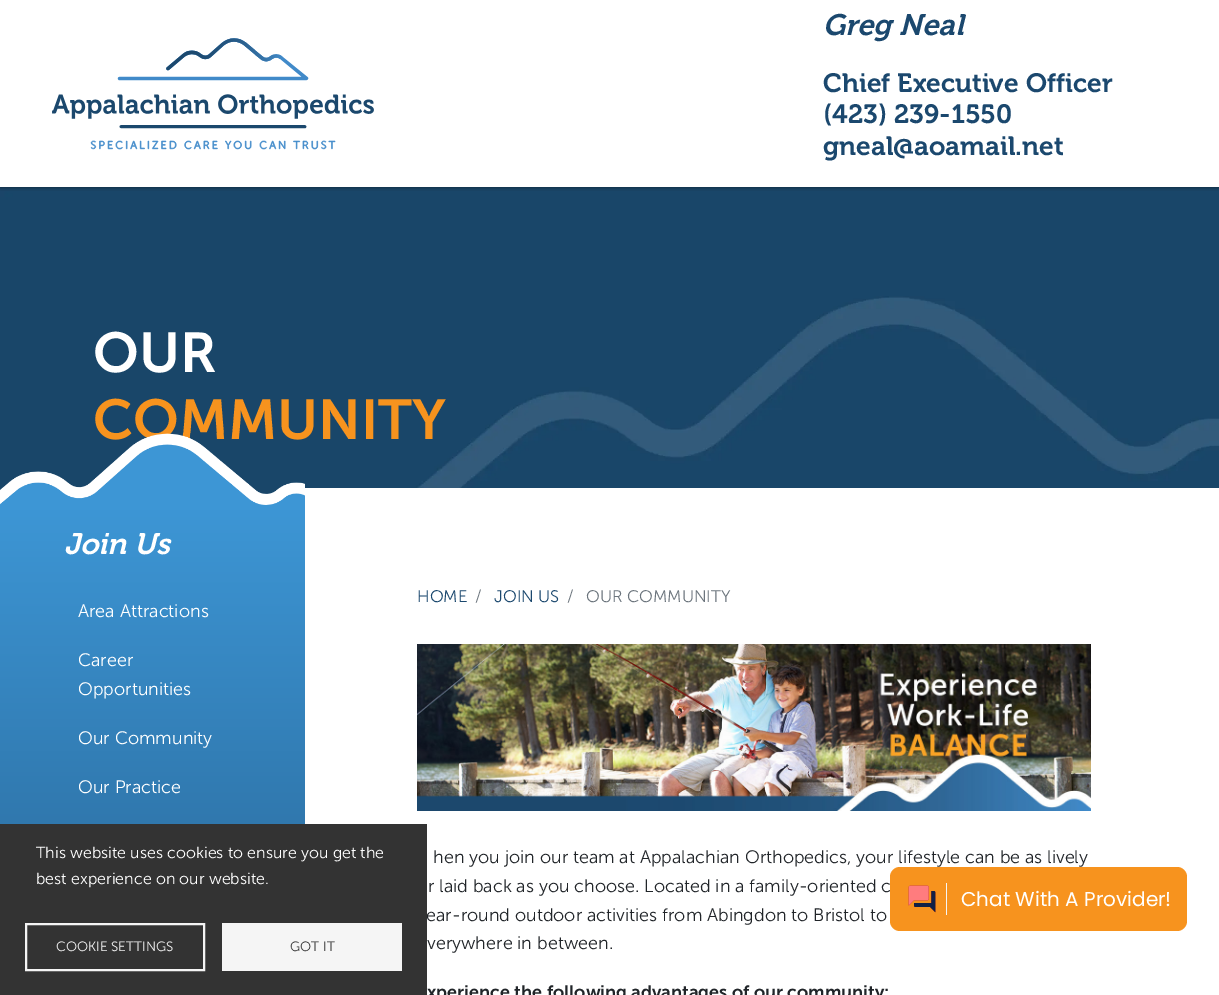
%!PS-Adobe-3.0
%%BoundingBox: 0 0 1219 995
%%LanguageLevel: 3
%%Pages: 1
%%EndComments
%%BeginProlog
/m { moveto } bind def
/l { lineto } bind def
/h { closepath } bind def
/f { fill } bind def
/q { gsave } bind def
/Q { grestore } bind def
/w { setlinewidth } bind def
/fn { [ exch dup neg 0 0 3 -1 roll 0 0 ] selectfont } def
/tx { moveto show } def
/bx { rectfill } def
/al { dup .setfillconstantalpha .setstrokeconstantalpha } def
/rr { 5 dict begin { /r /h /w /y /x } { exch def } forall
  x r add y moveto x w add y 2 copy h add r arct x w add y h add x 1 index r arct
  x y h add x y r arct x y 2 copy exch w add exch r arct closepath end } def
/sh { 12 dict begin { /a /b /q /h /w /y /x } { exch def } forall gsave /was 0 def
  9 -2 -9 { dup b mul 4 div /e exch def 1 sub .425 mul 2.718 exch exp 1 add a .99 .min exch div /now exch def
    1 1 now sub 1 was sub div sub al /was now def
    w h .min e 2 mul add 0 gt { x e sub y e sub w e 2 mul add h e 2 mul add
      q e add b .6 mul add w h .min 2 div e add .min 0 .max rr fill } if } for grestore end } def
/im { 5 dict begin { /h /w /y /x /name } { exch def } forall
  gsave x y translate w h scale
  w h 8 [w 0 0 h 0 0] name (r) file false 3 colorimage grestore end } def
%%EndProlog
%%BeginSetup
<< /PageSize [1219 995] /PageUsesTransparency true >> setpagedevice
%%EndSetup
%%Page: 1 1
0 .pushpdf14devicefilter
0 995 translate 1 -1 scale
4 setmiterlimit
1 setgray
0 0 1219 995 bx
(image1.raw) 0 187 1219 307 im
q
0 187 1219 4 rectclip
0 setgray
0 0 1219 187 0 2.5 0.5 sh
Q
(image0.raw) 52 38 322 112 im
/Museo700-SemiBoldItalic 29.5 fn
0.106 0.282 0.431 setrgbcolor
(Greg Neal) 823 35 tx
/Museo700-SemiBold 26.4 fn
(Chief Executive Officer) 823 92 tx
(\(423\) 239-1550) 823 123 tx
(gneal@aoamail.net) 823 155 tx
/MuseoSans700-SemiBold 56 fn
1 setgray
(OUR) 93 372 tx
0.969 0.576 0.118 setrgbcolor
(COMMUNITY) 93 439 tx
1 setgray
305 488 914 6 bx
q 0 509 m 305 509 l 305 824 l 0 824 l h clip newpath
<< /ShadingType 2 /ColorSpace /DeviceRGB /Coords [153 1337 153 509] /Extend [true true] /Function << /FunctionType 2 /Domain [0 1] /C0 [0.106 0.282 0.431] /C1 [0.239 0.588 0.835] /N 1 >> >> shfill Q
(image2.raw) 0 433 305 76 im
/Museo700-SemiBoldItalic 29.5 fn
(Join Us) 64 554 tx
/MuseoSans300-Light 18 fn
(Area Attractions) 78 617 tx
(Career) 78 666 tx
(Opportunities) 78 695 tx
(Our Community) 78 744 tx
(Our Practice) 78 793 tx
/MuseoSans300-Light 16.75 fn
0.106 0.282 0.431 setrgbcolor
(HOME) 417 602 tx
0.424 0.459 0.49 setrgbcolor
(/) 475 602 tx
0.106 0.282 0.431 setrgbcolor
(JOIN US) 494 602 tx
0.424 0.459 0.49 setrgbcolor
(/) 567 602 tx
(OUR COMMUNITY) 586 602 tx
(image3.raw) 417 644 674 167 im
/MuseoSans300-Light 18 fn
0.129 0.145 0.161 setrgbcolor
(hen you join our team at Appalachian Orthopedics, your lifestyle can be as lively) 433 863 tx
(r laid back as you choose. Located in a family-oriented c) 428 892 tx
(ear-round outdoor activities from Abingdon to Bristol to) 426 921 tx
(verywhere in between.) 427 949 tx
/MuseoSans700-SemiBold 18 fn
(xperience the following advantages of our community:) 427 998 tx
0.2 setgray
0 824 427 171 bx
/MuseoSans300-Light 16 fn
1 setgray
(This website uses cookies to ensure you get the) 36 858 tx
(best experience on our website.) 36 884 tx
0.961 setgray
2 w
26 924 178 46 rectstroke
/MuseoSans300-Light 13.5 fn
(COOKIE SETTINGS) 56 951 tx
222 923 180 48 bx
0.2 setgray
(GOT IT) 290 951 tx
0.969 0.576 0.118 setrgbcolor
890 867 297 64 10 rr f
(image4.raw) 908 885 28 28 im
0.961 setgray
946 883 1 32 bx
/Poppins-Regular 20 fn
1 setgray
(Chat With A Provider!) 961 906 tx
.poppdf14devicefilter showpage
%%EOF
